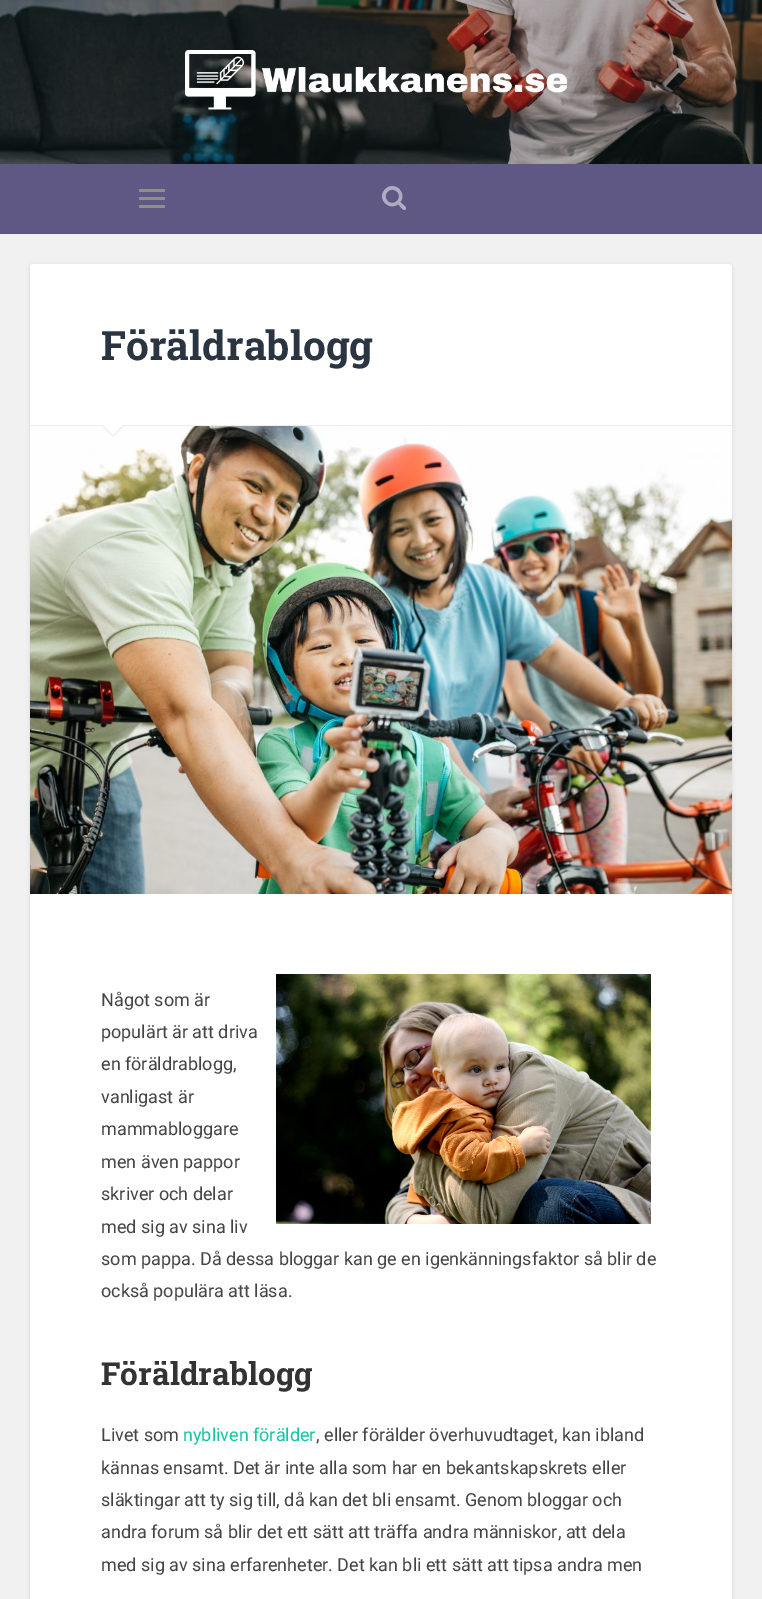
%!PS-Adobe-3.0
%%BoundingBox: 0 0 762 1599
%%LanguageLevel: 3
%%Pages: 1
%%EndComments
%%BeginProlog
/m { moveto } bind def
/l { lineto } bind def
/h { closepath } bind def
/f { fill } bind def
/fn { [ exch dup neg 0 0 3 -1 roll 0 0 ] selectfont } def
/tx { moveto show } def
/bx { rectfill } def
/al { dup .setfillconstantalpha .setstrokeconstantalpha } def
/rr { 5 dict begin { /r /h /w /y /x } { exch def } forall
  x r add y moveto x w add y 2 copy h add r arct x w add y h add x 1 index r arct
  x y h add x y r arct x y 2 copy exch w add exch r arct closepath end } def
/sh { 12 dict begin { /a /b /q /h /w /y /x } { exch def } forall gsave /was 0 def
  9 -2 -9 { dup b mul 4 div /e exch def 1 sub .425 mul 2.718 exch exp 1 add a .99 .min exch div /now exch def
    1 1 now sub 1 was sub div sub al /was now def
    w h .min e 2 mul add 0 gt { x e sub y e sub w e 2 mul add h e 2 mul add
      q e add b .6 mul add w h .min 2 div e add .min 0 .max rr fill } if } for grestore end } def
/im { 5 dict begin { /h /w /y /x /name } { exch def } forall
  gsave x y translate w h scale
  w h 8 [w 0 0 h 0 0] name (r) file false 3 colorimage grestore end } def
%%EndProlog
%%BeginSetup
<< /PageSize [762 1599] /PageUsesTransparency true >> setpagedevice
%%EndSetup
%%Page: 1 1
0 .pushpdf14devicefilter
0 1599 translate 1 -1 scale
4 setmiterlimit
0.945 setgray
0 0 762 1599 bx
(image0.raw) 0 0 762 164 im
(image1.raw) 185 50 383 60 im
0.373 0.345 0.518 setrgbcolor
0 164 762 70 bx
0.557 setgray
139 189 26 3 1 rr f
139 197 26 3 1 rr f
139 205 26 3 1 rr f
(image2.raw) 382 186 24 24 im
0 setgray
30 265 702 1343 3 2 0.1 sh
1 setgray
30 264 702 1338 3 rr f
0.933 setgray
30 425 702 1 bx
/RobotoSlab-Bold 40.5 fn
0.169 0.208 0.259 setrgbcolor
(Föräldrablogg) 101 360 tx
(image3.raw) 30 426 702 468 im
0.933 setgray
101 425 m 125 425 l 113 437 l h f
1 setgray
102 424 m 124 424 l 113 435 l h f
(image4.raw) 276 974 375 250 im
/Roboto-Regular 18 fn
0.267 setgray
(Något som är) 101 1006 tx
(populärt är att driva) 101 1038 tx
(en föräldrablogg,) 101 1070 tx
(vanligast är) 101 1103 tx
(mammabloggare) 101 1135 tx
(men även pappor) 101 1168 tx
(skriver och delar) 101 1200 tx
(med sig av sina liv) 101 1233 tx
(som pappa. Då dessa bloggar kan ge en igenkänningsfaktor så blir de) 101 1265 tx
(också populära att läsa.) 101 1297 tx
/RobotoSlab-Bold 31.5 fn
0.2 setgray
(Föräldrablogg) 101 1385 tx
/Roboto-Regular 18 fn
0.267 setgray
(Livet som) 101 1441 tx
0.075 0.769 0.647 setrgbcolor
(nybliven förälder) 183 1441 tx
0.267 setgray
(, eller förälder överhuvudtaget, kan ibland) 316 1441 tx
(kännas ensamt. Det är inte alla som har en bekantskapskrets eller) 101 1474 tx
(släktingar att ty sig till, då kan det bli ensamt. Genom bloggar och) 101 1506 tx
(andra forum så blir det ett sätt att träffa andra människor, att dela) 101 1538 tx
(med sig av sina erfarenheter. Det kan bli ett sätt att tipsa andra men) 101 1571 tx
.poppdf14devicefilter showpage
%%EOF
